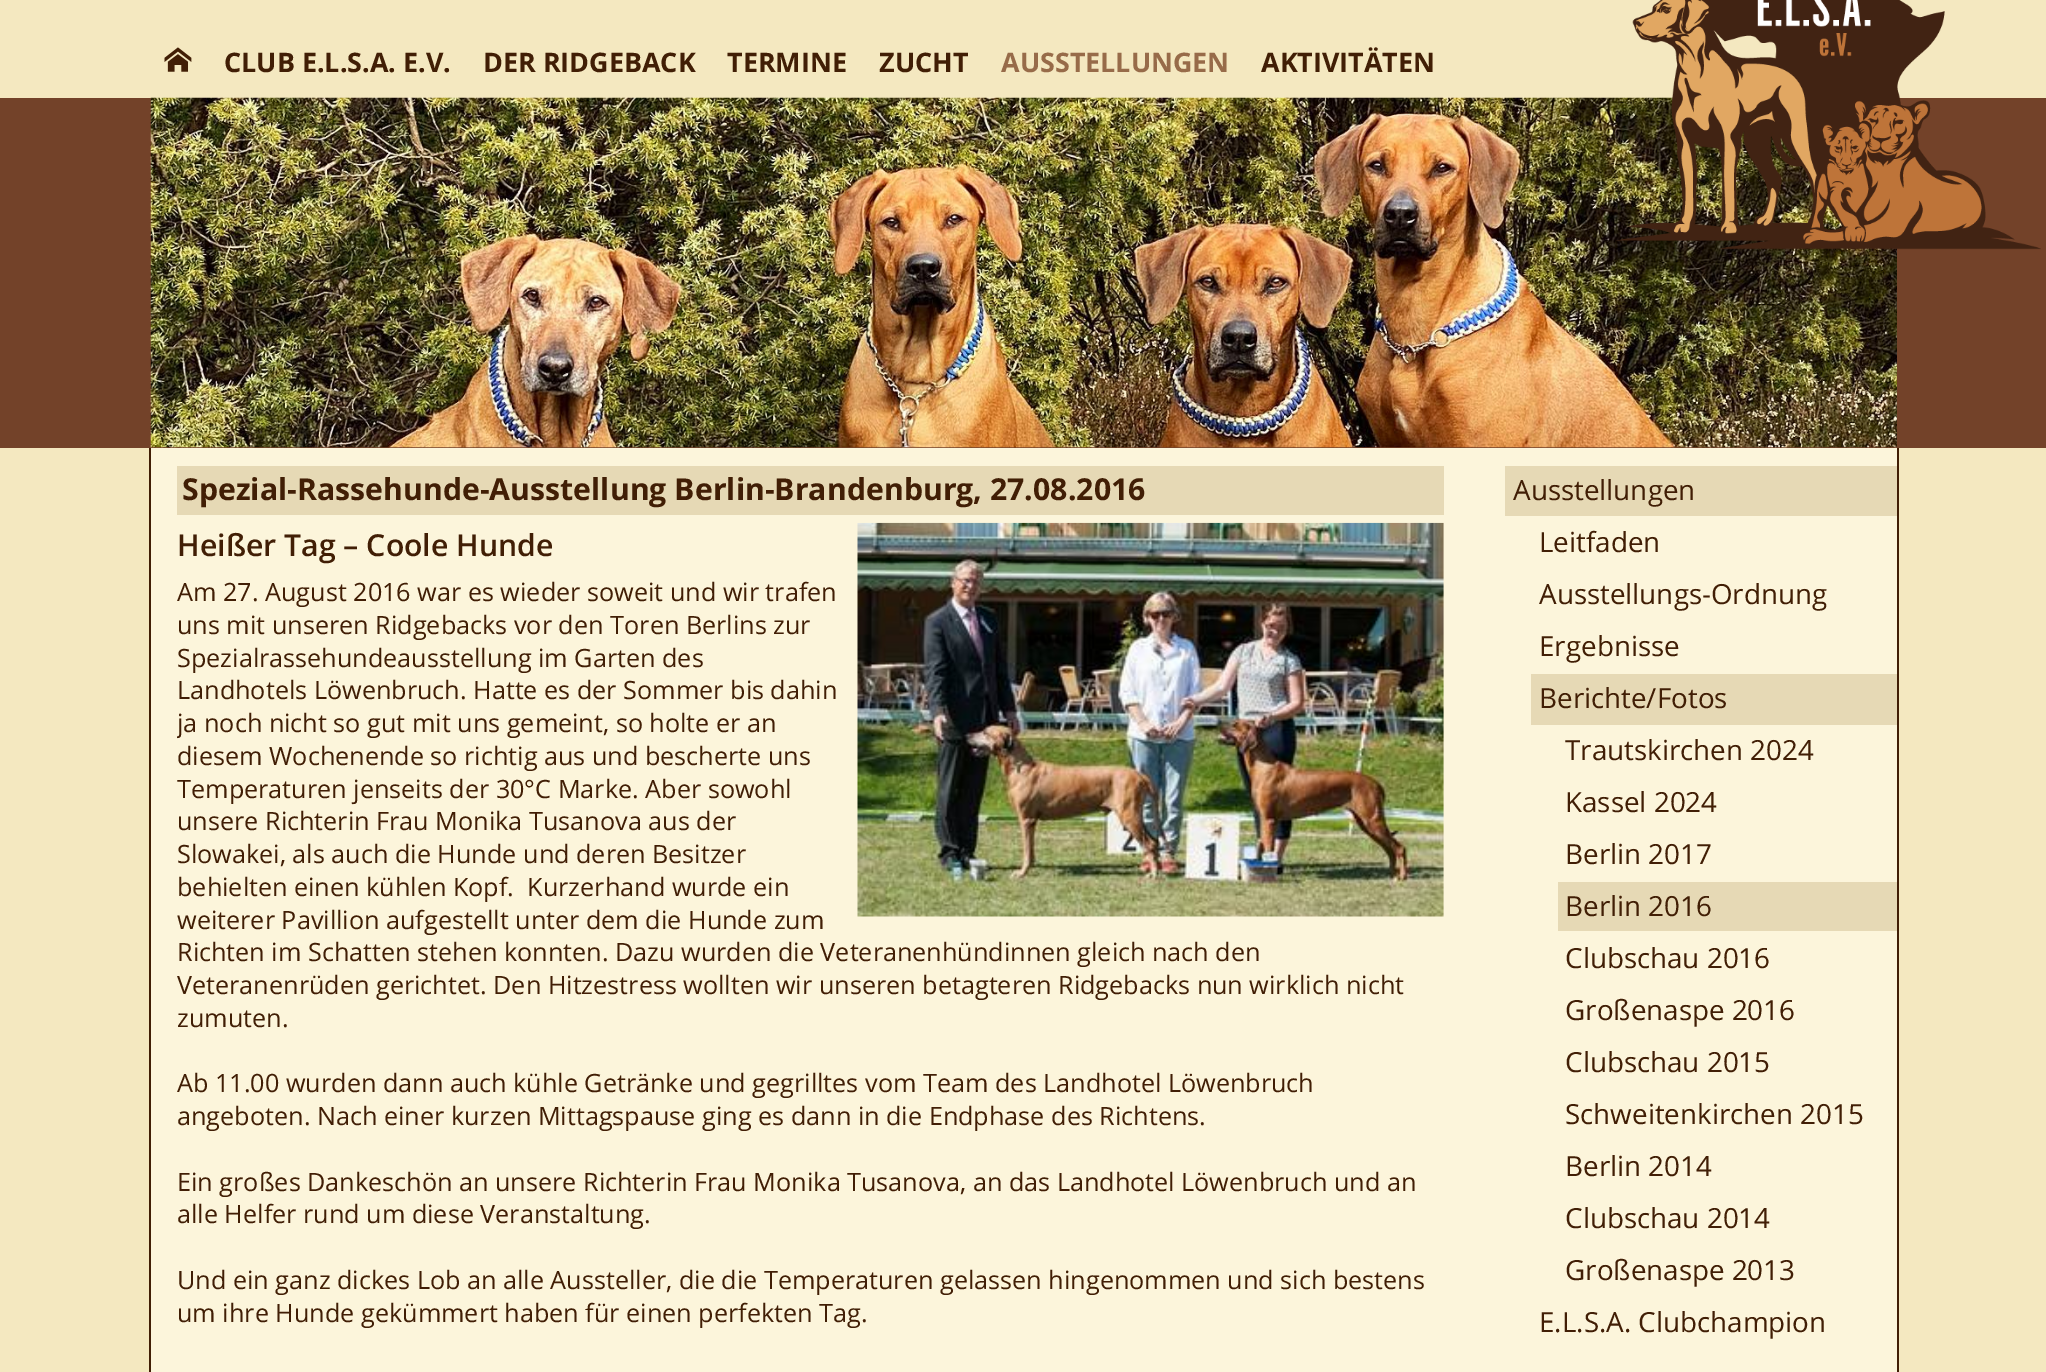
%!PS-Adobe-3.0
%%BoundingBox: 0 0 2046 1372
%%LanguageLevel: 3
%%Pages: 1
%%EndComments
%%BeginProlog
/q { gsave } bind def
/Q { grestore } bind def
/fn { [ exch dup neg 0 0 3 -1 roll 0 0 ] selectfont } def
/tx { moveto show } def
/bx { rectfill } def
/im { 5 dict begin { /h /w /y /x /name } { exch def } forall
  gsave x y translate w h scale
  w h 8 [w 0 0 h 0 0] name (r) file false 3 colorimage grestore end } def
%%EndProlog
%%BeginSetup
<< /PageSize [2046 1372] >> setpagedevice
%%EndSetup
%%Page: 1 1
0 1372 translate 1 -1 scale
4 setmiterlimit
0.957 0.91 0.753 setrgbcolor
0 0 2046 1372 bx
(image0.raw) 164 47 28 25 im
/OpenSans-Bold 26.9 fn
0.255 0.118 0.02 setrgbcolor
(CLUB E.L.S.A. E.V.) 224 72 tx
(DER RIDGEBACK) 483 72 tx
(TERMINE) 727 72 tx
(ZUCHT) 879 72 tx
0.592 0.42 0.286 setrgbcolor
(AUSSTELLUNGEN) 1001 72 tx
0.255 0.118 0.02 setrgbcolor
(AKTIVITÄTEN) 1261 72 tx
0.451 0.259 0.161 setrgbcolor
0 98 2046 350 bx
(image2.raw) 150 97 1747 351 im
(image1.raw) 1616 0 425 250 im
0.988 0.961 0.859 setrgbcolor
151 448 1746 924 bx
0.255 0.118 0.02 setrgbcolor
1897 448 2 924 bx
149 448 2 924 bx
0.902 0.851 0.71 setrgbcolor
177 466 1267 49 bx
/OpenSans-Bold 30.25 fn
0.255 0.118 0.02 setrgbcolor
(Spezial-Rassehunde-Ausstellung Berlin-Brandenburg, 27.08.2016) 182 500 tx
(image3.raw) 857 522 587 395 im
/OpenSans-SemiBold 30.25 fn
(Heißer Tag – Coole Hunde) 177 556 tx
/OpenSans-Regular 25.2 fn
(Am 27. August 2016 war es wieder soweit und wir trafen) 177 601 tx
(uns mit unseren Ridgebacks vor den Toren Berlins zur) 177 634 tx
(Spezialrassehundeausstellung im Garten des) 177 667 tx
(Landhotels Löwenbruch. Hatte es der Sommer bis dahin) 177 699 tx
q
177 523 1267 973 rectclip
(ja noch nicht so gut mit uns gemeint, so holte er an) 177 732 tx
Q
(diesem Wochenende so richtig aus und bescherte uns) 177 765 tx
(Temperaturen jenseits der 30°C Marke. Aber sowohl) 177 798 tx
(unsere Richterin Frau Monika Tusanova aus der) 177 830 tx
(Slowakei, als auch die Hunde und deren Besitzer) 177 863 tx
(behielten einen kühlen Kopf.  Kurzerhand wurde ein) 177 896 tx
(weiterer Pavillion aufgestellt unter dem die Hunde zum) 177 929 tx
(Richten im Schatten stehen konnten. Dazu wurden die Veteranenhündinnen gleich nach den) 177 961 tx
(Veteranenrüden gerichtet. Den Hitzestress wollten wir unseren betagteren Ridgebacks nun wirklich nicht) 177 994 tx
(zumuten.) 177 1027 tx
(Ab 11.00 wurden dann auch kühle Getränke und gegrilltes vom Team des Landhotel Löwenbruch) 177 1092 tx
(angeboten. Nach einer kurzen Mittagspause ging es dann in die Endphase des Richtens.) 177 1125 tx
(Ein großes Dankeschön an unsere Richterin Frau Monika Tusanova, an das Landhotel Löwenbruch und an) 177 1191 tx
(alle Helfer rund um diese Veranstaltung.) 177 1223 tx
(Und ein ganz dickes Lob an alle Aussteller, die die Temperaturen gelassen hingenommen und sich bestens) 177 1289 tx
(um ihre Hunde gekümmert haben für einen perfekten Tag.) 177 1322 tx
0.902 0.851 0.71 setrgbcolor
1505 466 392 50 bx
/OpenSans-Regular 27.75 fn
0.255 0.118 0.02 setrgbcolor
(Ausstellungen) 1513 500 tx
(Leitfaden) 1539 552 tx
(Ausstellungs-Ordnung) 1539 604 tx
(Ergebnisse) 1539 656 tx
0.902 0.851 0.71 setrgbcolor
1531 674 366 51 bx
0.255 0.118 0.02 setrgbcolor
(Berichte/Fotos) 1539 708 tx
(Trautskirchen 2024) 1565 760 tx
(Kassel 2024) 1565 812 tx
(Berlin 2017) 1565 864 tx
0.902 0.851 0.71 setrgbcolor
1558 882 339 49 bx
0.255 0.118 0.02 setrgbcolor
(Berlin 2016) 1565 916 tx
(Clubschau 2016) 1565 968 tx
(Großenaspe 2016) 1565 1020 tx
(Clubschau 2015) 1565 1072 tx
(Schweitenkirchen 2015) 1565 1124 tx
(Berlin 2014) 1565 1176 tx
(Clubschau 2014) 1565 1228 tx
(Großenaspe 2013) 1565 1280 tx
(E.L.S.A. Clubchampion) 1539 1332 tx
showpage
%%EOF
